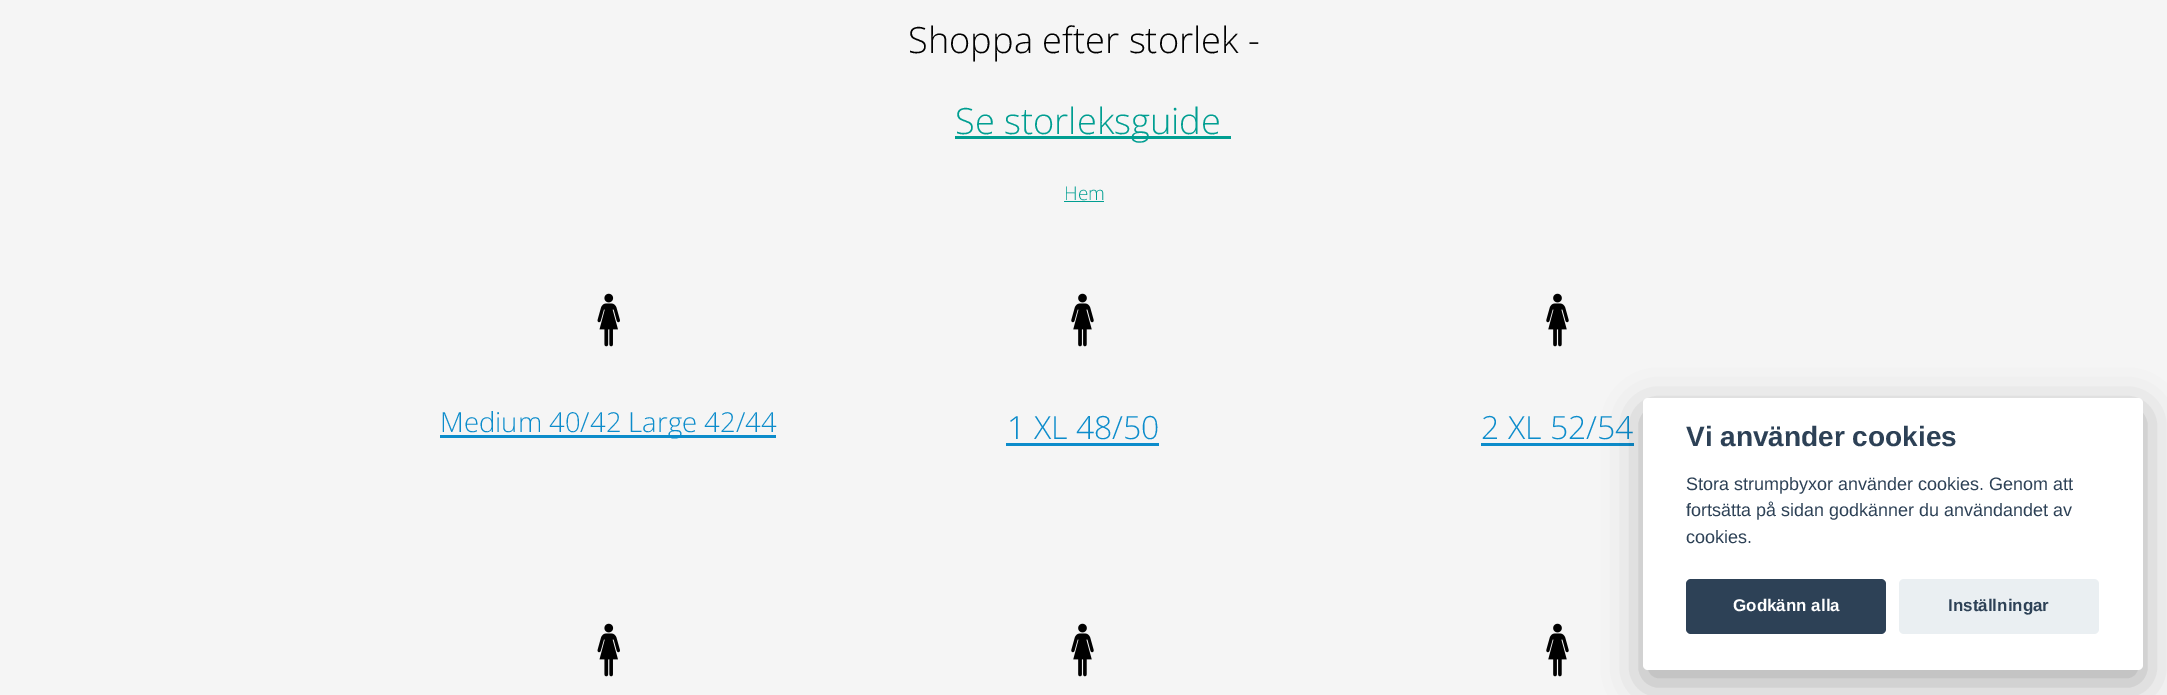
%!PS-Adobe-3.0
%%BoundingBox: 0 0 2167 695
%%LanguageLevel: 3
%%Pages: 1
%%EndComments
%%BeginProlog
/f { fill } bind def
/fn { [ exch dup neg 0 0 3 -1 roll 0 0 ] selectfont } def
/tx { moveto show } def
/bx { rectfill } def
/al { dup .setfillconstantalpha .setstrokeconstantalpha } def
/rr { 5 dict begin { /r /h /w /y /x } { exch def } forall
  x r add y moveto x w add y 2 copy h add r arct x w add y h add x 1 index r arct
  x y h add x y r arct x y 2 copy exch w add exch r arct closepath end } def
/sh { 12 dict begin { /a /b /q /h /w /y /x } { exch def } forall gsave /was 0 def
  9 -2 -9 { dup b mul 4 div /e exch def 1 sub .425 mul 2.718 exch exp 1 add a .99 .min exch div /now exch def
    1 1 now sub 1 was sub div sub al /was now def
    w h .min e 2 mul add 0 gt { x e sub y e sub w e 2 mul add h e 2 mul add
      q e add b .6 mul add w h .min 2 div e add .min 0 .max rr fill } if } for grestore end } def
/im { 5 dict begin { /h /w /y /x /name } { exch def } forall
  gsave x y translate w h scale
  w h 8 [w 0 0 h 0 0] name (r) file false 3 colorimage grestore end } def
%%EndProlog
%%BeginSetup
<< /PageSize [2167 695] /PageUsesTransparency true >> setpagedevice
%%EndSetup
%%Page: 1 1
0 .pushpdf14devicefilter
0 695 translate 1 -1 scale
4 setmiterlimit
0.961 setgray
0 0 2167 695 bx
/OpenSans-Light 36.25 fn
0 setgray
(Shoppa efter storlek) 908 53 tx
0.067 setgray
(-) 1248 53 tx
0 0.62 0.569 setrgbcolor
955 136 276 3 bx
(Se storleksguide) 955 134 tx
/OpenSans-Light 19 fn
(Hem) 1064 200 tx
1064 201 40 1 bx
(image0.raw) 597 293 23 54 im
0.047 0.549 0.796 setrgbcolor
440 435 336 3 bx
/OpenSans-Light 27.5 fn
(Medium 40/42 Large 42/44) 440 432 tx
(image1.raw) 1071 293 23 54 im
/OpenSans-Light 32 fn
(1 XL 48/50) 1007 439 tx
1006 443 153 3 bx
(image1.raw) 1546 293 23 54 im
(2 XL 52/54) 1481 439 tx
1481 443 153 3 bx
(image0.raw) 597 623 23 54 im
(image1.raw) 1071 623 23 54 im
(image1.raw) 1546 623 23 54 im
0.008 0.008 0.012 setrgbcolor
1643 410 500 273 5 19 0.28 sh
1 setgray
1643 398 500 272 5 rr f
/LiberationSans-Bold 28 fn
0.176 0.255 0.337 setrgbcolor
(Vi använder cookies) 1686 446 tx
/LiberationSans-Regular 18 fn
(Stora strumpbyxor använder cookies. Genom att) 1686 490 tx
(fortsätta på sidan godkänner du användandet av) 1686 516 tx
(cookies.) 1686 543 tx
1686 579 200 55 5 rr f
/LiberationSans-Bold 17 fn
1 setgray
(Godkänn alla) 1733 611 tx
0.918 0.937 0.949 setrgbcolor
1899 579 200 55 5 rr f
0.176 0.255 0.337 setrgbcolor
(Inställningar) 1948 611 tx
.poppdf14devicefilter showpage
%%EOF
